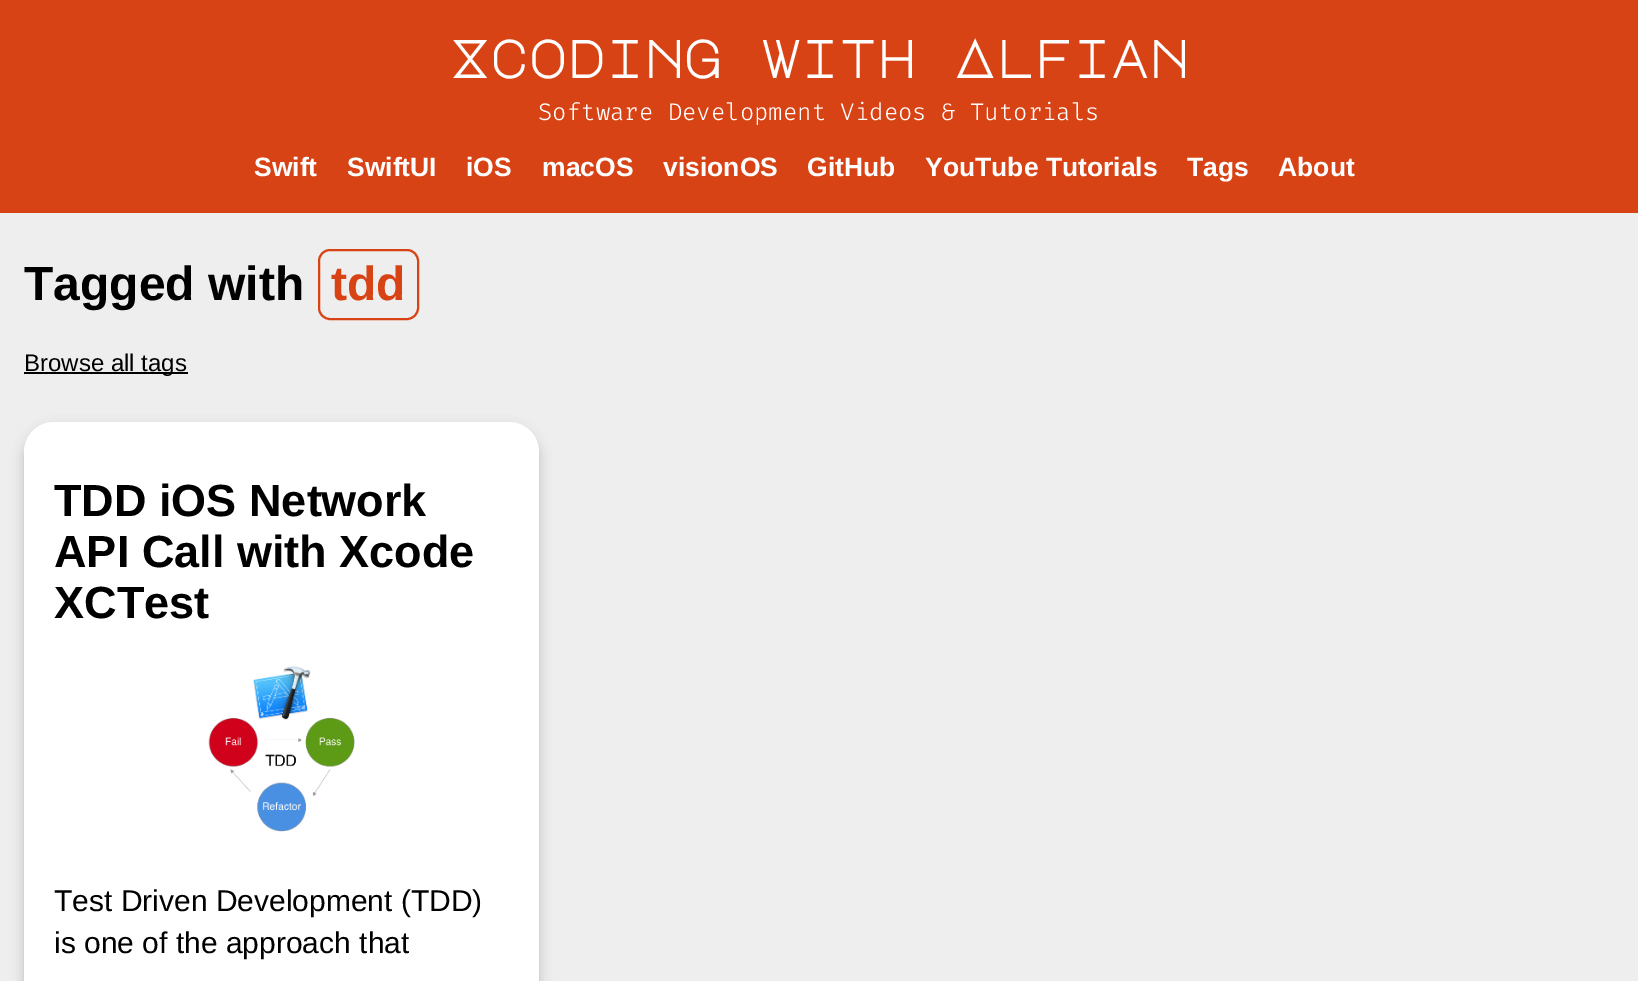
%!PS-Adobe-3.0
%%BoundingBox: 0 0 1638 981
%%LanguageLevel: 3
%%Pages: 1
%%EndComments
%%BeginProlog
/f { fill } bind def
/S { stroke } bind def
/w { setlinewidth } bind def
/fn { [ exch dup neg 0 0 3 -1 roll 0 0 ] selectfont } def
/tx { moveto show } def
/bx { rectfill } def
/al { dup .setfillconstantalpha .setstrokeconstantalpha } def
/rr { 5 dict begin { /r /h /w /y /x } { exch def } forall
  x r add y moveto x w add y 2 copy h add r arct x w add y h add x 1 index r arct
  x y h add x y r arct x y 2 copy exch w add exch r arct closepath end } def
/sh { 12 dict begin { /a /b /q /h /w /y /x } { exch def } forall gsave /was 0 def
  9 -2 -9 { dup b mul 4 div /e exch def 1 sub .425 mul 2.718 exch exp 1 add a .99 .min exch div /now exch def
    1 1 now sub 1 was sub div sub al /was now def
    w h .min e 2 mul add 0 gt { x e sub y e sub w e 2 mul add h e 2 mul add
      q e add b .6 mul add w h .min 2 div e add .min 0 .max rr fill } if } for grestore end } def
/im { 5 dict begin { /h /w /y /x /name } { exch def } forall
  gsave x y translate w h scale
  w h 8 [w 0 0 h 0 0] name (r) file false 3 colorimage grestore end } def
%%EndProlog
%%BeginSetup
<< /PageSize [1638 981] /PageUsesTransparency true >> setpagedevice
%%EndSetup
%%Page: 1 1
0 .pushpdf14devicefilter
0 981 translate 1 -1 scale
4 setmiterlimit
0.933 setgray
0 0 1638 981 bx
0.847 0.263 0.082 setrgbcolor
0 0 1638 213 bx
/MajorMonoDisplay-Bold 52.5 fn
1 setgray
(Xcoding with Alfian) 450 78 tx
/FiraCode-Light 24 fn
(Software Development Videos & Tutorials) 538 120 tx
/LiberationSans-Bold 26.5 fn
(Swift) 254 176 tx
(SwiftUI) 347 176 tx
(iOS) 466 176 tx
(macOS) 542 176 tx
(visionOS) 663 176 tx
(GitHub) 807 176 tx
(YouTube Tutorials) 925 176 tx
(Tags) 1187 176 tx
(About) 1278 176 tx
/LiberationSans-Bold 48 fn
0 setgray
(Tagged with) 24 300 tx
0.847 0.263 0.082 setrgbcolor
2 w
319 250 99 69 11 rr S
(tdd) 331 300 tx
0 setgray
24 372 164 2 bx
/LiberationSans-Regular 24 fn
(Browse all tags) 24 371 tx
24 428 515 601 30 6 0.2 sh
1 setgray
24 422 515 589 30 rr f
/LiberationSans-Bold 45 fn
0 setgray
(TDD iOS Network) 54 516 tx
(API Call with Xcode) 54 567 tx
(XCTest) 54 618 tx
(image0.raw) 208 666 147 166 im
/LiberationSans-Regular 30 fn
(Test Driven Development \(TDD\)) 54 911 tx
(is one of the approach that) 54 953 tx
.poppdf14devicefilter showpage
%%EOF
